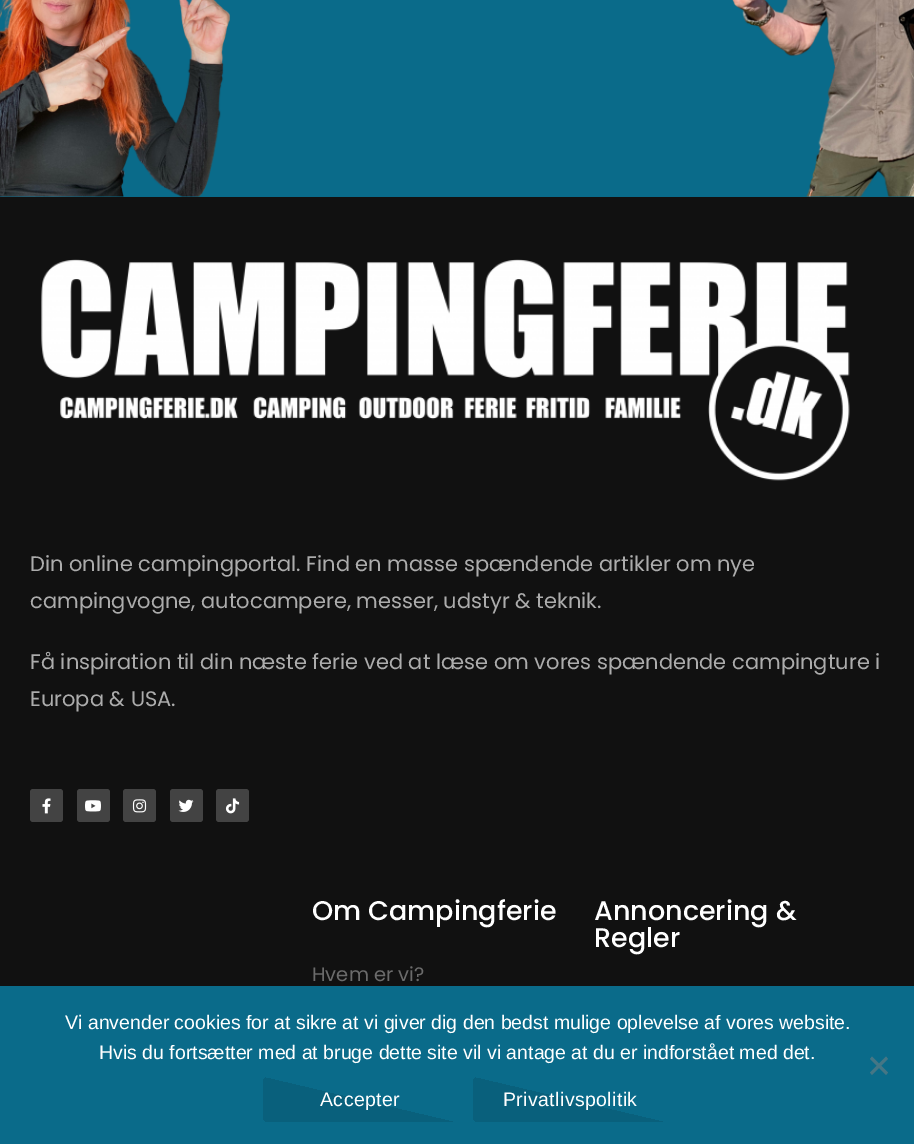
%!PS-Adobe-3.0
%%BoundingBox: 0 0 914 1144
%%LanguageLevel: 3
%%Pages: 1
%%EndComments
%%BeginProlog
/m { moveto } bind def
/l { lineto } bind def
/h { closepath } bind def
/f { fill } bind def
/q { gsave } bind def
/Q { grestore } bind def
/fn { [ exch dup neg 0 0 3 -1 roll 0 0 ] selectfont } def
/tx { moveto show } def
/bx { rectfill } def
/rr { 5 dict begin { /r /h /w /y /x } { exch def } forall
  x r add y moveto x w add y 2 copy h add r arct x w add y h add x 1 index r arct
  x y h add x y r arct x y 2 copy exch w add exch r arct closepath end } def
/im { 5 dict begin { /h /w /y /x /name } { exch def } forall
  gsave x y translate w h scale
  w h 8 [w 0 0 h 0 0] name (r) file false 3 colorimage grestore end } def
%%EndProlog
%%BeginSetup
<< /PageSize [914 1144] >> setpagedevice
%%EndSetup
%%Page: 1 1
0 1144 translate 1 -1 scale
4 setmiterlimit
0.039 0.42 0.541 setrgbcolor
0 0 914 1144 bx
(image0.raw) 0 0 914 197 im
0.067 setgray
0 197 914 789 bx
(image1.raw) 41 259 809 222 im
/Poppins-Regular 21 fn
0.675 setgray
(Din online campingportal. Find en masse spændende artikler om nye) 30 571 tx
(campingvogne, autocampere, messer, udstyr & teknik.) 30 608 tx
(Få inspiration til din næste ferie ved at læse om vores spændende campingture i) 30 669 tx
(Europa & USA.) 30 706 tx
0.263 setgray
30 789 33 33 3 rr f
(image2.raw) 42 798 9 16 im
77 789 33 33 3 rr f
(image3.raw) 85 800 16 12 im
123 789 33 33 3 rr f
(image4.raw) 132 799 15 14 im
170 789 33 33 3 rr f
(image5.raw) 178 799 16 13 im
216 789 33 33 3 rr f
(image6.raw) 225 798 15 16 im
/Poppins-Medium 27 fn
1 setgray
(Om Campingferie) 312 920 tx
/Poppins-Regular 19.5 fn
0.42 setgray
(Hvem er vi?) 312 981 tx
/Poppins-Medium 27 fn
1 setgray
(Annoncering &) 594 920 tx
(Regler) 594 947 tx
/LiberationSans-Regular 19.5 fn
(Vi anvender cookies for at sikre at vi giver dig den bedst mulige oplevelse af vores website.) 65 1029 tx
(Hvis du fortsætter med at bruge dette site vil vi antage at du er indforstået med det.) 99 1059 tx
0.271 0.463 0.522 setrgbcolor
886 1056.5 m 888 1059 l 872 1075 l 870 1072.5 l h f
870 1059 m 872 1056.5 l 888 1072.5 l 886 1075 l h f
q 263 1077 195 45 5 rr clip newpath
<< /ShadingType 2 /ColorSpace /DeviceRGB /Coords [370 1057 350 1142] /Extend [true true] /Function << /FunctionType 3 /Domain [0 1] /Functions [<< /FunctionType 2 /Domain [0 1] /C0 [0.039 0.42 0.541] /C1 [0.039 0.42 0.541] /N 1 >> << /FunctionType 2 /Domain [0 1] /C0 [0.035 0.376 0.486] /C1 [0.035 0.376 0.486] /N 1 >>] /Bounds [0.5] /Encode [0 1 0 1] >> >> shfill Q
1 setgray
320 1106 m 0.4 0 (Accepter) ashow
q 473 1077 195 45 5 rr clip newpath
<< /ShadingType 2 /ColorSpace /DeviceRGB /Coords [580 1057 560 1142] /Extend [true true] /Function << /FunctionType 3 /Domain [0 1] /Functions [<< /FunctionType 2 /Domain [0 1] /C0 [0.039 0.42 0.541] /C1 [0.039 0.42 0.541] /N 1 >> << /FunctionType 2 /Domain [0 1] /C0 [0.035 0.376 0.486] /C1 [0.035 0.376 0.486] /N 1 >>] /Bounds [0.5] /Encode [0 1 0 1] >> >> shfill Q
503 1106 m 0.4 0 (Privatlivspolitik) ashow
showpage
%%EOF
